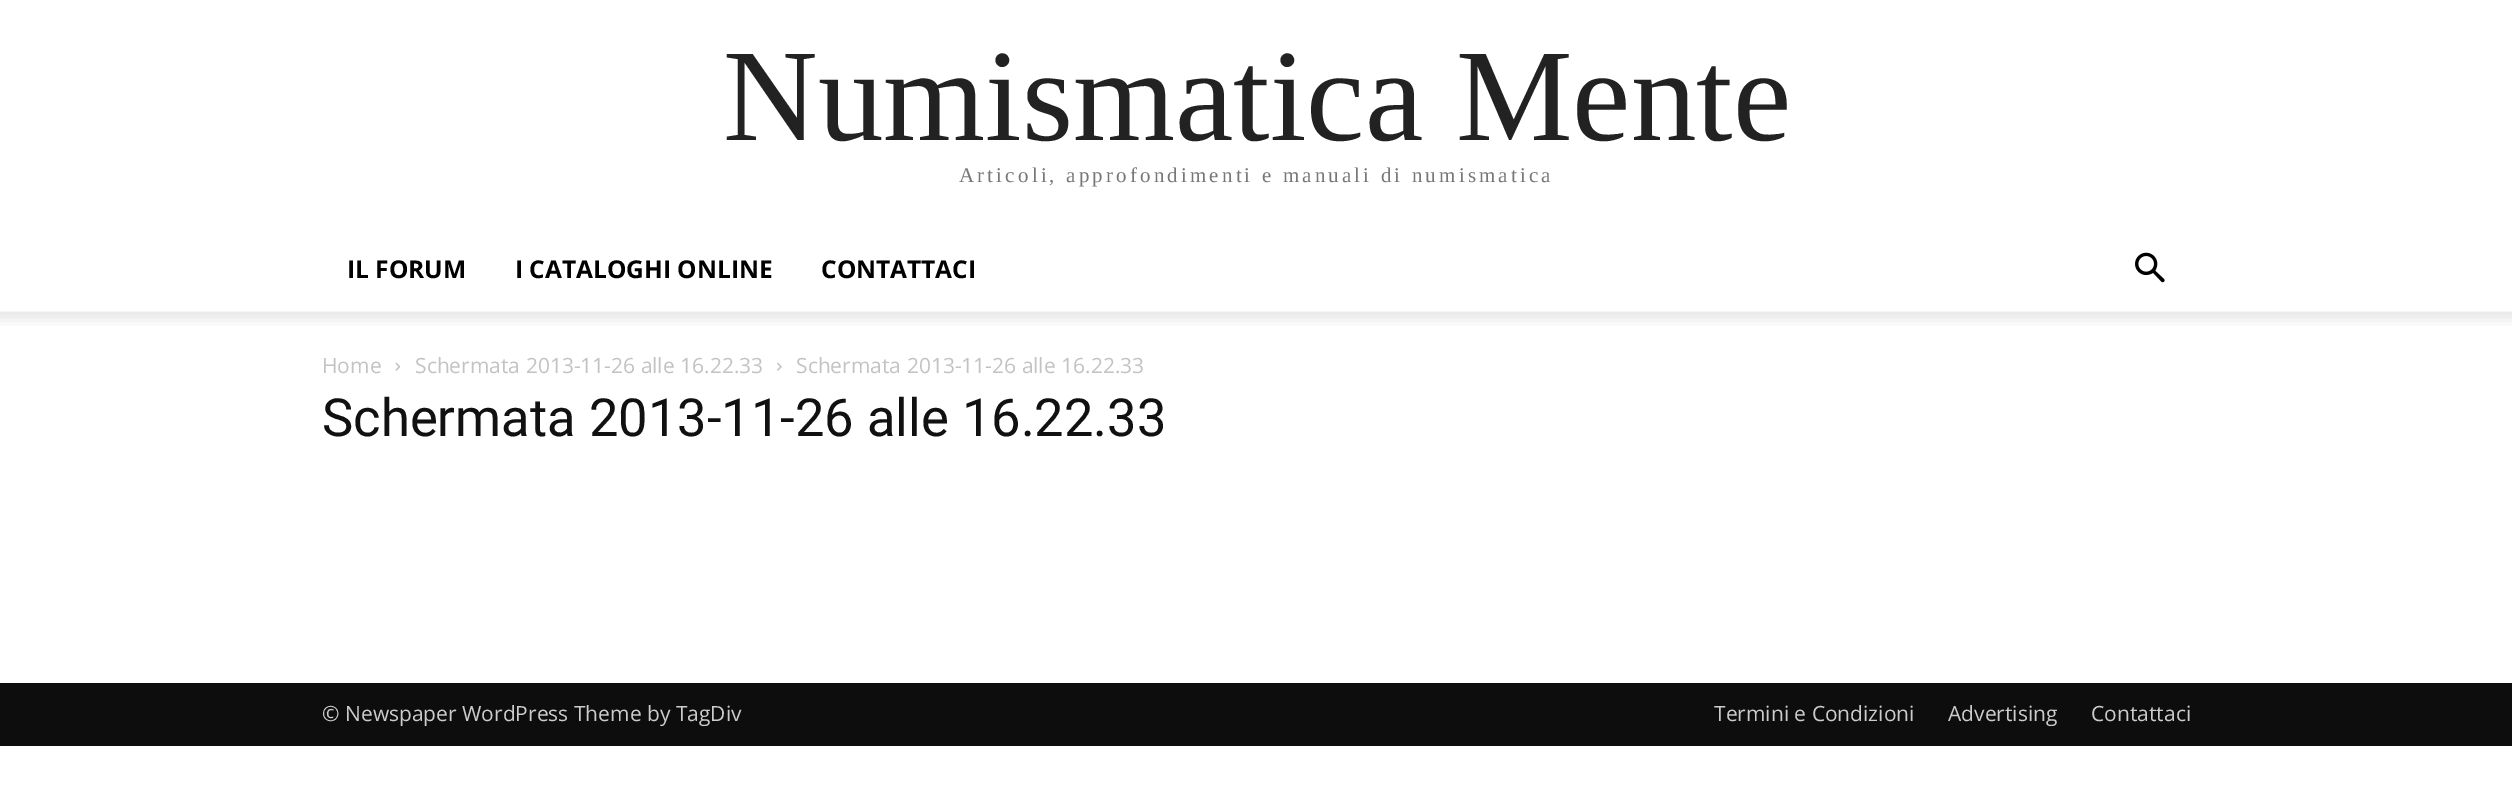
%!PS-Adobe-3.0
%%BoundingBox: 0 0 2512 811
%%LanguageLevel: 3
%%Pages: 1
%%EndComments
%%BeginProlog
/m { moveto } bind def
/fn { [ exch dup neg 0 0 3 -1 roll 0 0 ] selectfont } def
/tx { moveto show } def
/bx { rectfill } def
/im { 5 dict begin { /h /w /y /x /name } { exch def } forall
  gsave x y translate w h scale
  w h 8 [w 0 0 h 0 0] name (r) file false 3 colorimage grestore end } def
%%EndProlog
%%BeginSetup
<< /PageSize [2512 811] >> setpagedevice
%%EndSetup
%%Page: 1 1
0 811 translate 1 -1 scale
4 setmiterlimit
1 setgray
0 0 2512 811 bx
/LiberationSerif-Regular 131.25 fn
0.133 setgray
(Numismatica Mente) 723 140 tx
/LiberationSerif-Regular 21 fn
0.467 setgray
959 182 m 3.15 0 (Articoli, approfondimenti e manuali di numismatica) ashow
/OpenSans-Bold 24.5 fn
0 setgray
(IL FORUM) 347 278 tx
(I CATALOGHI ONLINE) 515 278 tx
(CONTATTACI) 821 278 tx
(image0.raw) 2135 252 30 31 im
(image1.raw) 0 311 2512 15 im
/OpenSans-Regular 21 fn
0.765 setgray
(Home) 322 373 tx
(image2.raw) 395 362 6 9 im
(Schermata 2013-11-26 alle 16.22.33) 415 373 tx
(image3.raw) 777 362 5 9 im
(Schermata 2013-11-26 alle 16.22.33) 796 373 tx
/Roboto-Regular 52.5 fn
0.067 setgray
(Schermata 2013-11-26 alle 16.22.33) 322 436 tx
0.051 setgray
0 683 2512 63 bx
/OpenSans-Regular 21 fn
0.8 setgray
(© Newspaper WordPress Theme by TagDiv) 322 721 tx
(Termini e Condizioni) 1714 721 tx
(Advertising) 1948 721 tx
(Contattaci) 2091 721 tx
showpage
%%EOF
